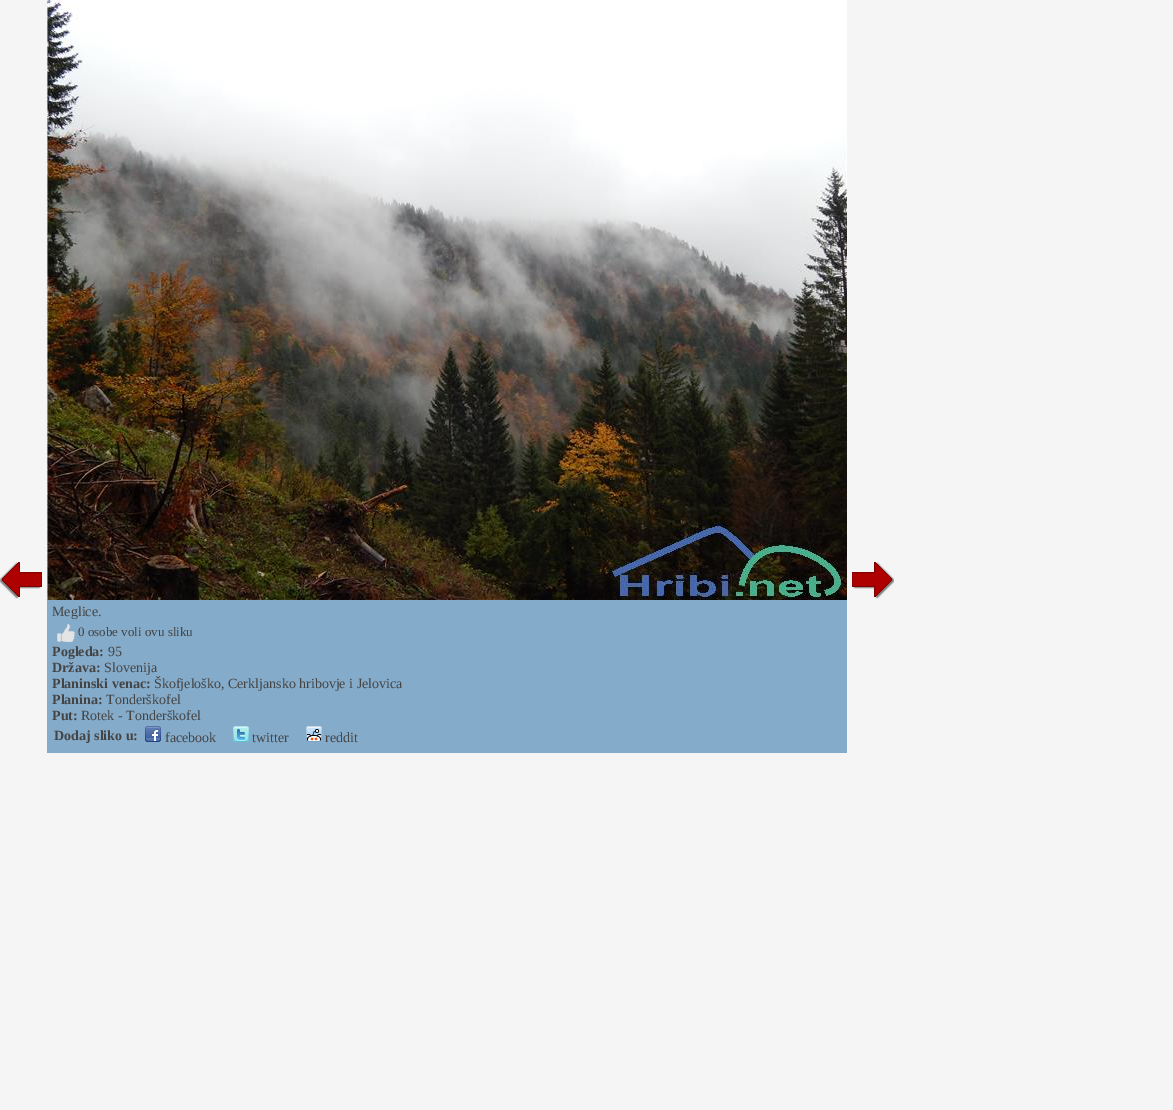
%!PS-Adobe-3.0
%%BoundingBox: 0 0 1173 1110
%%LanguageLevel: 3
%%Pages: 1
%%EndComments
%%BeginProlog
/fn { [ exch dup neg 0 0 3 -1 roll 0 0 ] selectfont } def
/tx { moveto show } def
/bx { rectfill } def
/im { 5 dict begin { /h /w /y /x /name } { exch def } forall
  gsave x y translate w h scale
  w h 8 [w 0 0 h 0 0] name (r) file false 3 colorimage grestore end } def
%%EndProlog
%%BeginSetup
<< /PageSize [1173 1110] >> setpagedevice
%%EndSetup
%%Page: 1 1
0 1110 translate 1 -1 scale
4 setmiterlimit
0.961 setgray
0 0 1173 1110 bx
(image0.raw) 0 562 42 37 im
(image1.raw) 852 562 42 37 im
0.522 0.671 0.792 setrgbcolor
47 600 800 153 bx
(image2.raw) 47 0 800 600 im
/LiberationSerif-Regular 14 fn
0.267 setgray
(Meglice.) 52 616 tx
(image3.raw) 57 624 18 18 im
/LiberationSerif-Regular 13 fn
(0 osobe voli ovu sliku) 78 636 tx
/LiberationSerif-Bold 14 fn
(Pogleda:) 52 656 tx
/LiberationSerif-Regular 14 fn
(95) 108 656 tx
/LiberationSerif-Bold 14 fn
(Država:) 52 672 tx
/LiberationSerif-Regular 14 fn
(Slovenija) 104 672 tx
/LiberationSerif-Bold 14 fn
(Planinski venac:) 52 688 tx
/LiberationSerif-Regular 14 fn
(Škofjeloško, Cerkljansko hribovje i Jelovica) 154 688 tx
/LiberationSerif-Bold 14 fn
(Planina:) 52 704 tx
/LiberationSerif-Regular 14 fn
(Tonderškofel) 106 704 tx
/LiberationSerif-Bold 14 fn
(Put:) 52 720 tx
/LiberationSerif-Regular 14 fn
(Rotek - Tonderškofel) 81 720 tx
/LiberationSerif-Bold 14 fn
(Dodaj sliko u:) 54 740 tx
(image4.raw) 145 726 16 16 im
/LiberationSerif-Regular 14 fn
(facebook) 165 742 tx
(image5.raw) 233 726 16 16 im
(twitter) 252 742 tx
(image6.raw) 306 726 16 16 im
(reddit) 325 742 tx
showpage
%%EOF
